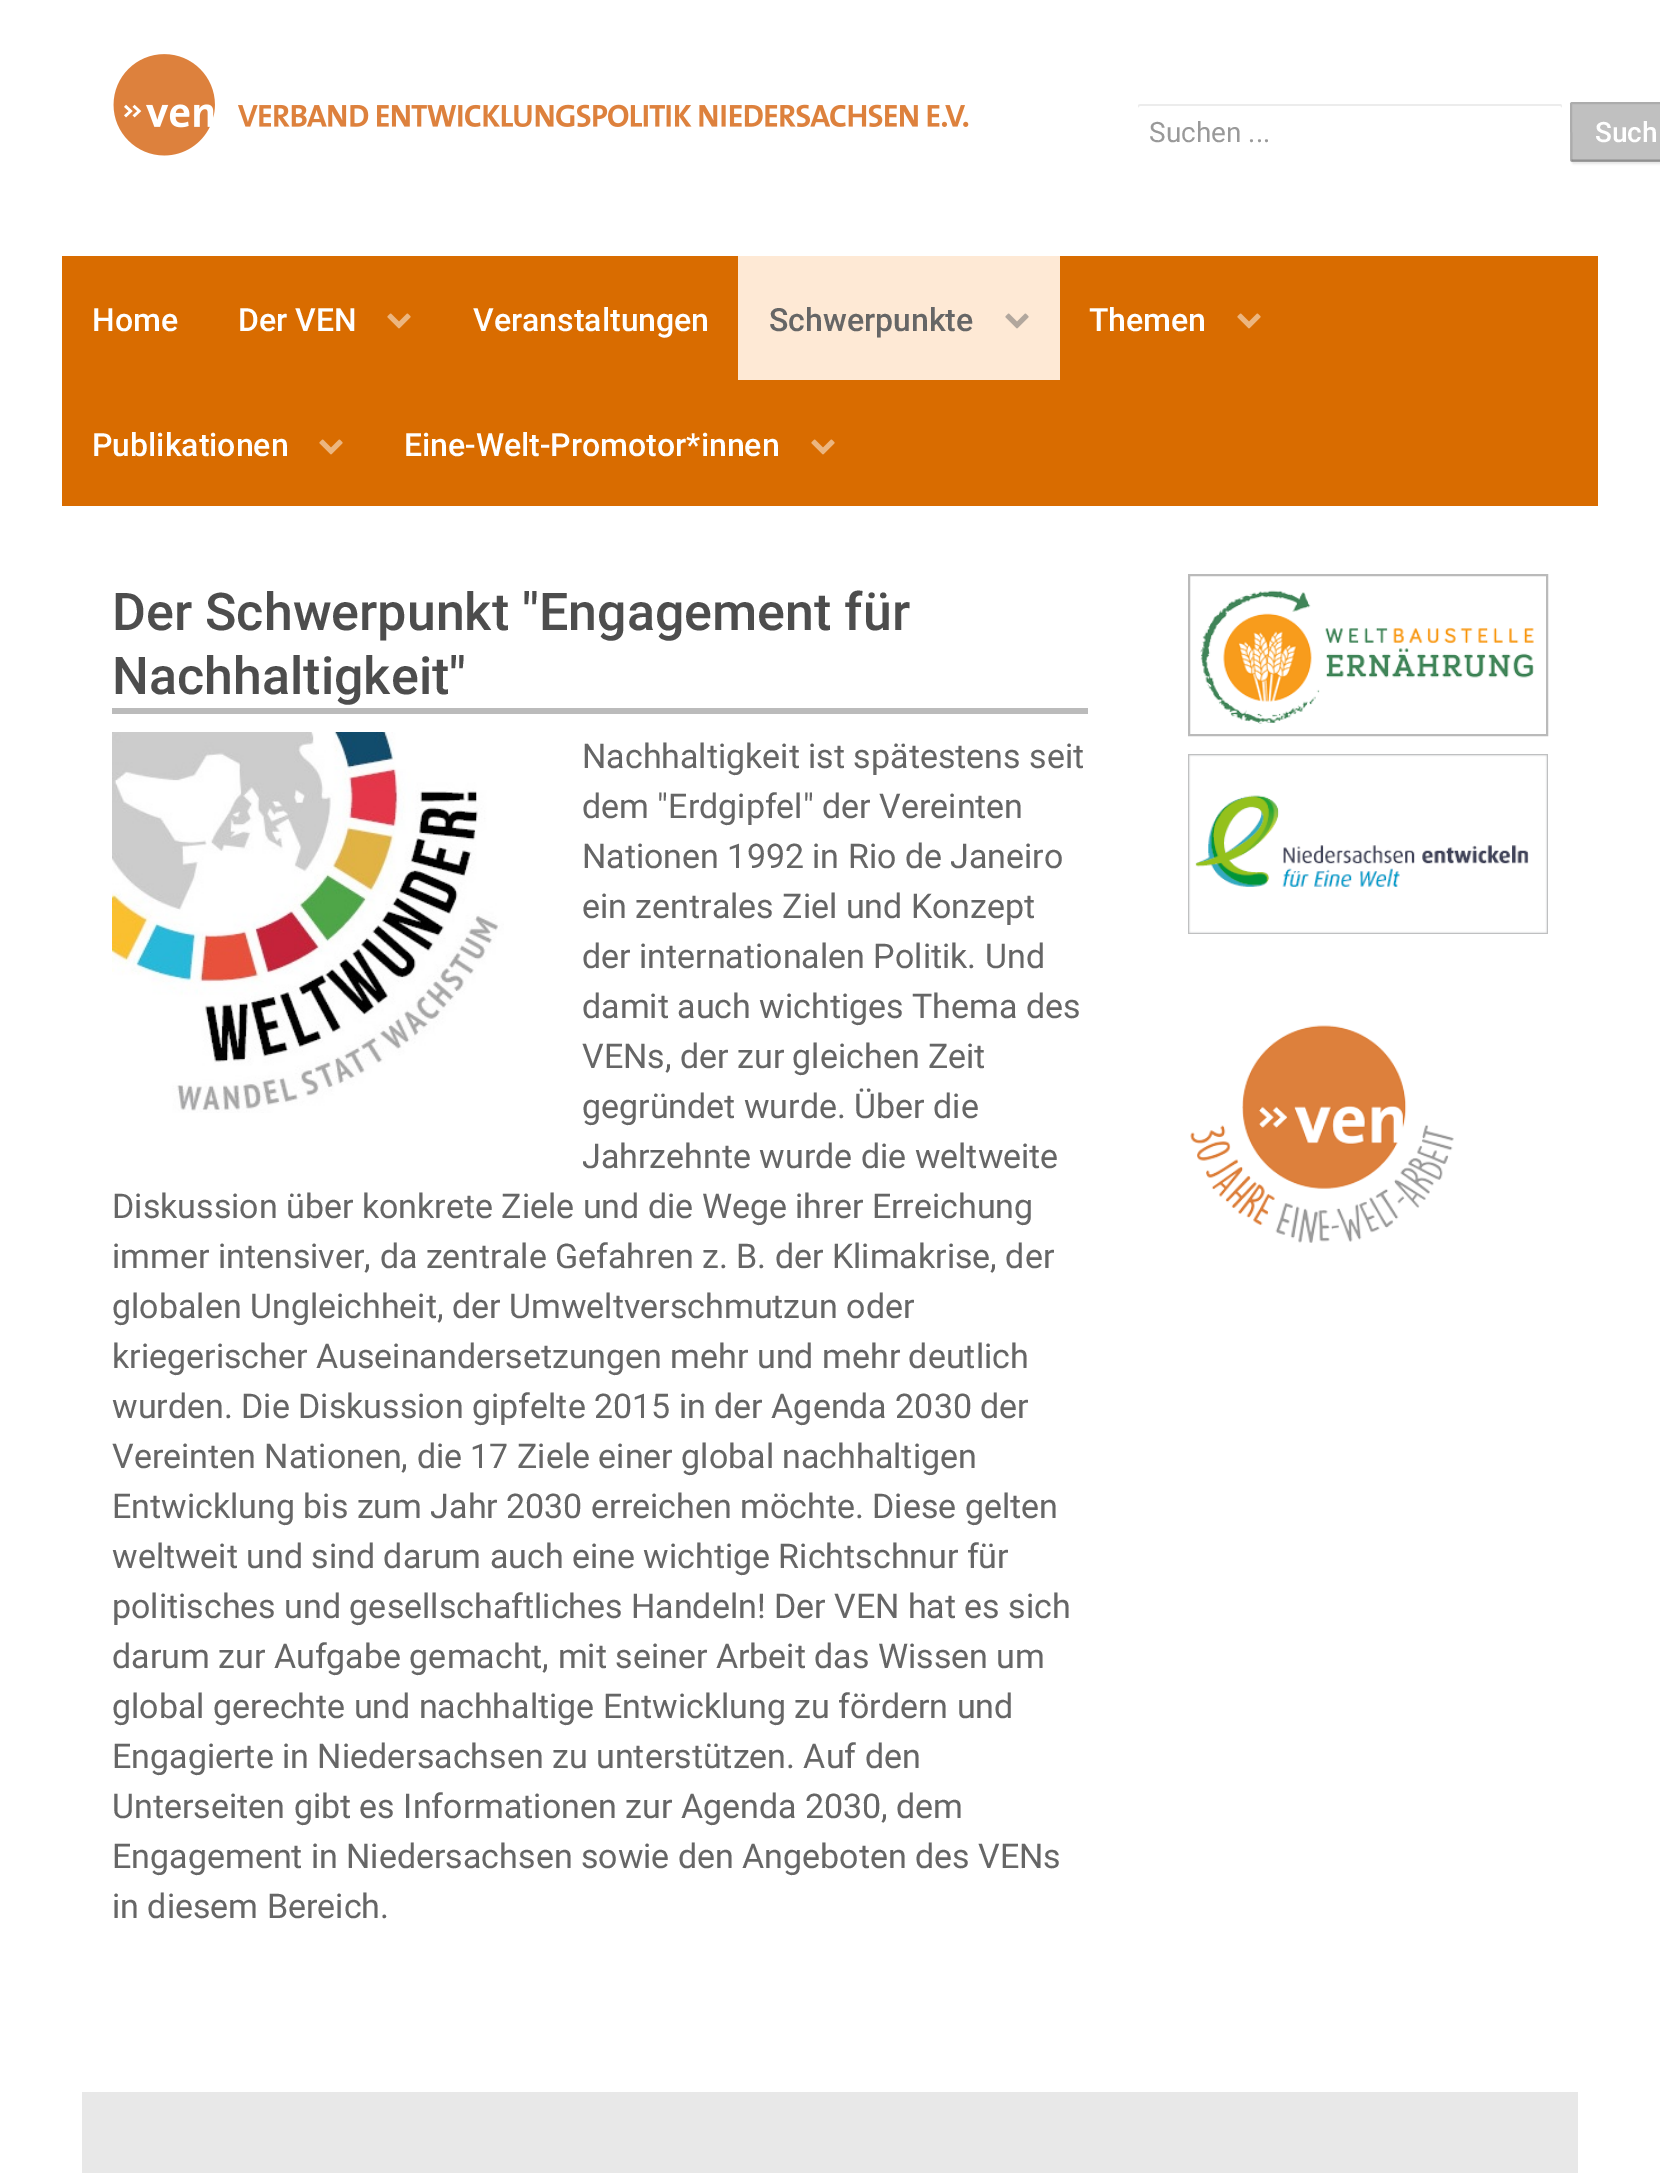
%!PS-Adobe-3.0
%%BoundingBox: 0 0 1660 2173
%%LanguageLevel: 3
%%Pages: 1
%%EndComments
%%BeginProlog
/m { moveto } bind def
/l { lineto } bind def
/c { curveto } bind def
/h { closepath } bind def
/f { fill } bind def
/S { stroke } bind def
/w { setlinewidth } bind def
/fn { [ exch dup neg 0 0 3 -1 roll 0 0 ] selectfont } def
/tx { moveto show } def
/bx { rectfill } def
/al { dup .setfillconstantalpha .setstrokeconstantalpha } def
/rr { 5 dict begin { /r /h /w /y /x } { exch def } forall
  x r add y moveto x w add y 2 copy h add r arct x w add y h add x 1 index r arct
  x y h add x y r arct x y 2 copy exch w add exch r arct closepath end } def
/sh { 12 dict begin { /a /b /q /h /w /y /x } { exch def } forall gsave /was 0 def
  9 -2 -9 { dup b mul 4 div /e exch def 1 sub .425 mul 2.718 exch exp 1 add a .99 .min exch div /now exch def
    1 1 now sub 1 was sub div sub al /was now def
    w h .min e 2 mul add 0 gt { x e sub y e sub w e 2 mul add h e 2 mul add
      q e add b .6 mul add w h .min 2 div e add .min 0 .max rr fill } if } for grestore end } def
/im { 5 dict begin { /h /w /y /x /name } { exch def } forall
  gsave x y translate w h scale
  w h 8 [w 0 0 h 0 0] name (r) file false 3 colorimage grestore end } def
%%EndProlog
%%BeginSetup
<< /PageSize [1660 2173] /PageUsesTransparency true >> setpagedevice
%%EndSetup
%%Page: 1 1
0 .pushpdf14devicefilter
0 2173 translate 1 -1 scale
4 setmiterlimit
1 setgray
0 0 1660 2173 bx
(image0.raw) 113 54 856 102 im
0.925 setgray
1140 106 m 1560 106 l 1561 106 1562 107 1562 108 c 1562 106 1562 104 1560 104 c 1140 104 l 1138 105 l 1138 108 l 1138 107 1139 106 1140 106 c h f
/Roboto-Regular 28 fn
0.6 setgray
(Suchen ...) 1149 142 tx
0 setgray
1572 104 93 60 2 1 0.1 sh
0.753 setgray
1572 102 m 1660 102 l 1660 162 l 1572 162 l 1571 162 1570 161 1570 160 c 1570 104 l 1570 103 1571 102 1572 102 c h f
0.565 setgray
2 w
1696.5 160.5 m 1571.5 160.5 l S
0.1 al
0 setgray
1571.5 160.5 m 1571 104 l 1572 103 l 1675.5 103 l 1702.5 103 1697 96.5 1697 122.5 c 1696.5 160.5 l S
/Roboto-Medium 28 fn
1 al
1 setgray
(Such) 1595 142 tx
0.851 0.424 0 setrgbcolor
62 256 1536 250 bx
/Roboto-Medium 32 fn
1 setgray
(Home) 92 331 tx
(Der VEN) 238 331 tx
(image1.raw) 387 313 24 16 im
(Veranstaltungen) 473 331 tx
0.996 0.914 0.835 setrgbcolor
738 256 322 124 bx
0.4 setgray
(Schwerpunkte) 769 331 tx
(image2.raw) 1005 313 24 16 im
1 setgray
(Themen) 1089 331 tx
(image1.raw) 1237 313 24 16 im
(Publikationen) 92 456 tx
(image1.raw) 319 439 24 16 im
(Eine-Welt-Promotor*innen) 404 456 tx
(image1.raw) 811 439 24 16 im
0.733 setgray
112 708 976 6 bx
/Roboto-Medium 52 fn
0.302 setgray
(Der Schwerpunkt "Engagement für) 112 630 tx
(Nachhaltigkeit") 112 694 tx
(image3.raw) 112 732 392 381 im
/Roboto-Regular 34 fn
0.4 setgray
(Nachhaltigkeit ist spätestens seit) 582 768 tx
(dem "Erdgipfel" der Vereinten) 582 818 tx
(Nationen 1992 in Rio de Janeiro) 582 868 tx
(ein zentrales Ziel und Konzept) 582 918 tx
(der internationalen Politik. Und) 582 968 tx
(damit auch wichtiges Thema des) 582 1018 tx
(VENs, der zur gleichen Zeit) 582 1068 tx
(gegründet wurde. Über die) 582 1118 tx
(Jahrzehnte wurde die weltweite) 582 1168 tx
(Diskussion über konkrete Ziele und die Wege ihrer Erreichung) 112 1218 tx
(immer intensiver, da zentrale Gefahren z. B. der Klimakrise, der) 112 1268 tx
(globalen Ungleichheit, der Umweltverschmutzun oder) 112 1318 tx
(kriegerischer Auseinandersetzungen mehr und mehr deutlich) 112 1368 tx
(wurden. Die Diskussion gipfelte 2015 in der Agenda 2030 der) 112 1418 tx
(Vereinten Nationen, die 17 Ziele einer global nachhaltigen) 112 1468 tx
(Entwicklung bis zum Jahr 2030 erreichen möchte. Diese gelten) 112 1518 tx
(weltweit und sind darum auch eine wichtige Richtschnur für) 112 1568 tx
(politisches und gesellschaftliches Handeln! Der VEN hat es sich) 112 1618 tx
(darum zur Aufgabe gemacht, mit seiner Arbeit das Wissen um) 112 1668 tx
(global gerechte und nachhaltige Entwicklung zu fördern und) 112 1718 tx
(Engagierte in Niedersachsen zu unterstützen. Auf den) 112 1768 tx
(Unterseiten gibt es Informationen zur Agenda 2030, dem) 112 1818 tx
(Engagement in Niedersachsen sowie den Angeboten des VENs) 112 1868 tx
(in diesem Bereich.) 112 1918 tx
0.729 setgray
1189 575 358 160 rectstroke
(image4.raw) 1200 590 334 134 im
(image5.raw) 1188 754 360 180 im
(image6.raw) 1190 1025 264 218 im
0.91 setgray
82 2092 1496 81 bx
.poppdf14devicefilter showpage
%%EOF
